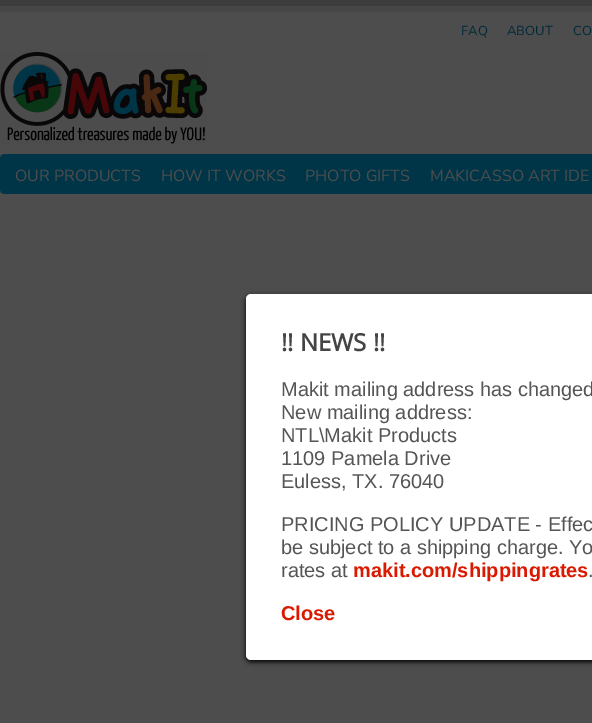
%!PS-Adobe-3.0
%%BoundingBox: 0 0 592 723
%%LanguageLevel: 3
%%Pages: 1
%%EndComments
%%BeginProlog
/f { fill } bind def
/fn { [ exch dup neg 0 0 3 -1 roll 0 0 ] selectfont } def
/tx { moveto show } def
/bx { rectfill } def
/al { dup .setfillconstantalpha .setstrokeconstantalpha } def
/rr { 5 dict begin { /r /h /w /y /x } { exch def } forall
  x r add y moveto x w add y 2 copy h add r arct x w add y h add x 1 index r arct
  x y h add x y r arct x y 2 copy exch w add exch r arct closepath end } def
/sh { 12 dict begin { /a /b /q /h /w /y /x } { exch def } forall gsave /was 0 def
  9 -2 -9 { dup b mul 4 div /e exch def 1 sub .425 mul 2.718 exch exp 1 add a .99 .min exch div /now exch def
    1 1 now sub 1 was sub div sub al /was now def
    w h .min e 2 mul add 0 gt { x e sub y e sub w e 2 mul add h e 2 mul add
      q e add b .6 mul add w h .min 2 div e add .min 0 .max rr fill } if } for grestore end } def
/im { 5 dict begin { /h /w /y /x /name } { exch def } forall
  gsave x y translate w h scale
  w h 8 [w 0 0 h 0 0] name (r) file false 3 colorimage grestore end } def
%%EndProlog
%%BeginSetup
<< /PageSize [592 723] /PageUsesTransparency true >> setpagedevice
%%EndSetup
%%Page: 1 1
0 .pushpdf14devicefilter
0 723 translate 1 -1 scale
4 setmiterlimit
0.302 setgray
0 0 592 723 bx
(image0.raw) 0 0 592 12 im
/Nunito-ExtraLight 13 fn
0 0.161 0.22 setrgbcolor
(FAQ) 461 35 tx
(ABOUT) 507 35 tx
(CO) 573 35 tx
(image1.raw) 0 52 207 92 im
(image2.raw) 0 154 592 40 im
/Nunito-ExtraLight 16 fn
0.302 setgray
(OUR PRODUCTS) 15 181 tx
(HOW IT WORKS) 161 181 tx
(PHOTO GIFTS) 305 181 tx
(MAKICASSO ART IDE) 430 181 tx
0 setgray
246 296 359 366 5 2.5 1 sh
1 setgray
246 294 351 366 5 rr f
/OpenSans-Bold 24 fn
0.267 setgray
(!! NEWS !!) 281 351 tx
/LiberationSans-Regular 20 fn
0.333 setgray
(Makit mailing address has changed) 281 396 tx
(New mailing address:) 281 419 tx
(NTL\\Makit Products) 281 442 tx
(1109 Pamela Drive) 281 465 tx
(Euless, TX. 76040) 281 488 tx
(PRICING POLICY UPDATE - Effec) 281 531 tx
(be subject to a shipping charge. Yo) 281 554 tx
(rates at) 281 577 tx
/LiberationSans-Bold 20 fn
0.851 0.098 0 setrgbcolor
(makit.com/shippingrates) 353 577 tx
/LiberationSans-Regular 20 fn
0.333 setgray
(.) 588 577 tx
/LiberationSans-Bold 20 fn
0.851 0.098 0 setrgbcolor
(Close) 281 620 tx
.poppdf14devicefilter showpage
%%EOF
